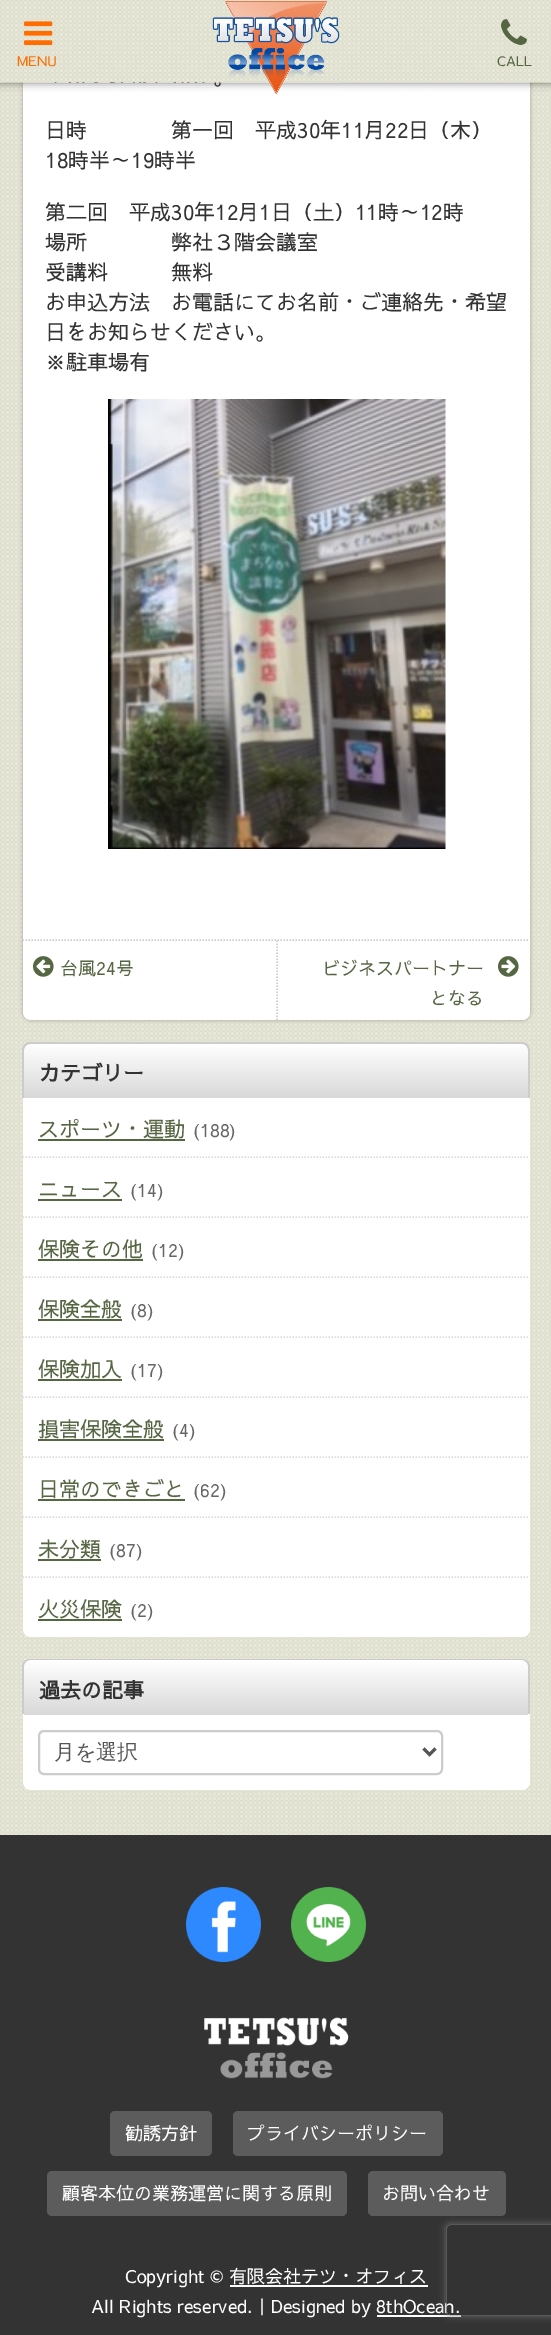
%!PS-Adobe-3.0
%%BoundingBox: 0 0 551 2335
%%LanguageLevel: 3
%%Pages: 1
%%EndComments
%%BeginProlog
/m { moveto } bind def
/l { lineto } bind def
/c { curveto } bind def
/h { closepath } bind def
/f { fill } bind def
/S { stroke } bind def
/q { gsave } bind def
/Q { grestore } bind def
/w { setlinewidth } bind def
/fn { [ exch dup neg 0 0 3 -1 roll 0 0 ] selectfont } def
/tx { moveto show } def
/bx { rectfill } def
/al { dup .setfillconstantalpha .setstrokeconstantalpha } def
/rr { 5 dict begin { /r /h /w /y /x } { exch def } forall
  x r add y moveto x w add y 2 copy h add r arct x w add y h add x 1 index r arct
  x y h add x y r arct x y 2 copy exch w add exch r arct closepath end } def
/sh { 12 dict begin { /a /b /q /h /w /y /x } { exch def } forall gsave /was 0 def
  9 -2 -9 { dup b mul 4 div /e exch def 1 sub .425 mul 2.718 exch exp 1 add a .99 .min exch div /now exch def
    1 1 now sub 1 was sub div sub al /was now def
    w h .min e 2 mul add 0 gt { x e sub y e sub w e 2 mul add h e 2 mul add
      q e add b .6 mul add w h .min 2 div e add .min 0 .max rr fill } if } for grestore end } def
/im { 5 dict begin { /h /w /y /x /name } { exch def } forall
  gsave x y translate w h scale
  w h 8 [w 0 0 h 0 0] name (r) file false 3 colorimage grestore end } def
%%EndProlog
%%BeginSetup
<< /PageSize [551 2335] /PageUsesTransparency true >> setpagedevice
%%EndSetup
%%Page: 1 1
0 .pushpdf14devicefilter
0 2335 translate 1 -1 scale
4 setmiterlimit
1 setgray
0 0 551 2335 bx
(image0.raw) 0 82 551 1753 im
0 setgray
23 -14 507 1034 8 2 0.3 sh
1 setgray
23 -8 507 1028 8 rr f
0 setgray
0 0 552 83 0 4 0.5 sh
(image1.raw) 0 0 551 83 im
(image2.raw) 24 21 29 24 im
/SawarabiGothic-Regular 13.5 fn
1 0.424 0 setrgbcolor
(MENU) 17 66 tx
(image3.raw) 212 1 128 93 im
(image4.raw) 501 19 26 26 im
0.333 0.4 0.263 setrgbcolor
(CALL) 497 66 tx
/SawarabiGothic-Regular 21 fn
0.2 setgray
(日時　　　　第一回　平成30年11月22日（木）) 45 138 tx
(18時半～19時半) 45 168 tx
(第二回　平成30年12月1日（土）11時～12時) 45 220 tx
(場所　　　　弊社３階会議室) 45 250 tx
(受講料　　　無料) 45 280 tx
(お申込方法　お電話にてお名前・ご連絡先・希望) 45 310 tx
(日をお知らせください。) 45 340 tx
(※駐車場有) 45 370 tx
(image5.raw) 108 399 338 450 im
0.8 setgray
1.5 w
[1.5 1.5] 0 setdash
22.5 940 m 529.5 940 l S
(image6.raw) 33 956 21 21 im
/SawarabiGothic-Regular 18 fn
0.333 0.4 0.263 setrgbcolor
(台風24号) 60 975 tx
0.8 setgray
277 940.5 m 277 1020 l S
0.333 0.4 0.263 setrgbcolor
(ビジネスパートナー) 322 975 tx
(image7.raw) 498 956 21 21 im
(となる) 430 1005 tx
1 setgray
23 1043 507 594 8 rr f
q 30 1044 m 522 1044 l 525.5 1044 528 1046.5 528 1050 c 528 1098 l 24 1098 l 24 1050 l 24 1046.5 26.5 1044 30 1044 c h clip newpath
<< /ShadingType 2 /ColorSpace /DeviceRGB /Coords [276 1044 276 1098] /Extend [true true] /Function << /FunctionType 2 /Domain [0 1] /C0 [1 1 1] /C1 [0.847 0.847 0.847] /N 1 >> >> shfill Q
0.8 setgray
30 1042 m 522 1042 l 526 1042 530 1046 530 1050 c 530 1098 l 22 1098 l 22 1050 l 22 1046 26 1042 30 1042 c h 30 1044 m 522 1044 l 525 1044 528 1047 528 1050 c 528 1098 l 24 1098 l 24 1050 l 24 1047 27 1044 30 1044 c h eofill
/SawarabiGothic-Bold 21 fn
0.2 setgray
(カテゴリー) 39 1081 tx
0.867 setgray
22.5 1157 m 529.5 1157 l S
/SawarabiGothic-Regular 21 fn
0.333 0.4 0.263 setrgbcolor
(スポーツ・運動) 38 1137 tx
38 1139 147 2 bx
/SawarabiGothic-Regular 18 fn
0.4 setgray
(\(188\)) 193 1137 tx
0.867 setgray
22.5 1217 m 529.5 1217 l S
/SawarabiGothic-Regular 21 fn
0.333 0.4 0.263 setrgbcolor
(ニュース) 38 1197 tx
38 1199 84 2 bx
/SawarabiGothic-Regular 18 fn
0.4 setgray
(\(14\)) 130 1197 tx
0.867 setgray
22.5 1277 m 529.5 1277 l S
/SawarabiGothic-Regular 21 fn
0.333 0.4 0.263 setrgbcolor
(保険その他) 38 1257 tx
38 1259 105 2 bx
/SawarabiGothic-Regular 18 fn
0.4 setgray
(\(12\)) 151 1257 tx
0.867 setgray
22.5 1337 m 529.5 1337 l S
/SawarabiGothic-Regular 21 fn
0.333 0.4 0.263 setrgbcolor
(保険全般) 38 1317 tx
38 1319 84 2 bx
/SawarabiGothic-Regular 18 fn
0.4 setgray
(\(8\)) 130 1317 tx
0.867 setgray
22.5 1397 m 529.5 1397 l S
/SawarabiGothic-Regular 21 fn
0.333 0.4 0.263 setrgbcolor
(保険加入) 38 1377 tx
38 1379 84 2 bx
/SawarabiGothic-Regular 18 fn
0.4 setgray
(\(17\)) 130 1377 tx
0.867 setgray
22.5 1457 m 529.5 1457 l S
/SawarabiGothic-Regular 21 fn
0.333 0.4 0.263 setrgbcolor
(損害保険全般) 38 1437 tx
38 1439 126 2 bx
/SawarabiGothic-Regular 18 fn
0.4 setgray
(\(4\)) 172 1437 tx
0.867 setgray
22.5 1517 m 529.5 1517 l S
/SawarabiGothic-Regular 21 fn
0.333 0.4 0.263 setrgbcolor
(日常のできごと) 38 1497 tx
38 1499 147 2 bx
/SawarabiGothic-Regular 18 fn
0.4 setgray
(\(62\)) 193 1497 tx
0.867 setgray
22.5 1577 m 529.5 1577 l S
/SawarabiGothic-Regular 21 fn
0.333 0.4 0.263 setrgbcolor
(未分類) 38 1557 tx
38 1559 63 2 bx
/SawarabiGothic-Regular 18 fn
0.4 setgray
(\(87\)) 109 1557 tx
/SawarabiGothic-Regular 21 fn
0.333 0.4 0.263 setrgbcolor
(火災保険) 38 1617 tx
38 1619 84 2 bx
/SawarabiGothic-Regular 18 fn
0.4 setgray
(\(2\)) 130 1617 tx
1 setgray
23 1659 507 131 8 rr f
q 30 1661 m 522 1661 l 525.5 1661 528 1663.5 528 1667 c 528 1715 l 24 1715 l 24 1667 l 24 1663.5 26.5 1661 30 1661 c h clip newpath
<< /ShadingType 2 /ColorSpace /DeviceRGB /Coords [276 1661 276 1715] /Extend [true true] /Function << /FunctionType 2 /Domain [0 1] /C0 [1 1 1] /C1 [0.847 0.847 0.847] /N 1 >> >> shfill Q
0.8 setgray
30 1659 m 522 1659 l 526 1659 530 1662 530 1666 c 530 1714 l 22 1714 l 22 1666 l 22 1662 26 1659 30 1659 c h 30 1660 m 522 1660 l 525 1660 528 1663 528 1666 c 528 1714 l 24 1714 l 24 1666 l 24 1663 27 1660 30 1660 c h eofill
/SawarabiGothic-Bold 21 fn
0.2 setgray
(過去の記事) 39 1698 tx
0.8 setgray
2 w
[] 0 setdash
39 1731 403 43 5 rr S
0.333 setgray
3 w
423.5 1748.5 m 429.5 1754.5 l 435.5 1748.5 l S
/WenQuanYiZenHei-Medium 21 fn
(月を選択) 54 1759 tx
0.2 setgray
0 1835 551 500 bx
(image8.raw) 186 1887 75 75 im
(image9.raw) 291 1887 75 75 im
(image10.raw) 204 2017 145 62 im
0.361 setgray
110 2111 102 45 5 rr f
/SawarabiGothic-Regular 18 fn
1 setgray
(勧誘方針) 125 2140 tx
0.361 setgray
233 2111 210 45 5 rr f
1 setgray
(プライバシーポリシー) 247 2140 tx
0.361 setgray
47 2171 300 45 5 rr f
1 setgray
(顧客本位の業務運営に関する原則) 62 2200 tx
0.361 setgray
368 2171 138 45 5 rr f
1 setgray
(お問い合わせ) 382 2200 tx
(Copyright © 有限会社テツ・オフィス) 125 2283 tx
230 2285 198 2 bx
(All Rights reserved.｜Designed by 8thOcean.) 91 2313 tx
377 2315 84 2 bx
q
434 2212 m 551 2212 l 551 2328 l 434 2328 l h 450 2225 m 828 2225 l 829.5 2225 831 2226.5 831 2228 c 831 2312 l 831 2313.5 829.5 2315 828 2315 c 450 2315 l 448.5 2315 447 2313.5 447 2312 c 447 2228 l 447 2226.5 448.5 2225 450 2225 c h eoclip newpath
0.502 setgray
447 2225 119 90 3 4 1 sh
Q
.poppdf14devicefilter showpage
%%EOF
